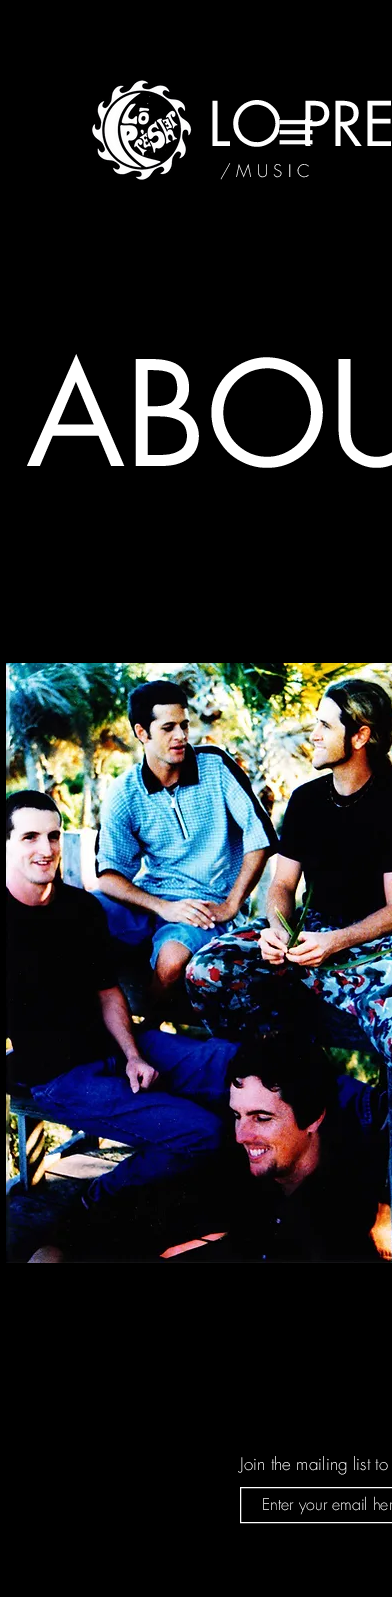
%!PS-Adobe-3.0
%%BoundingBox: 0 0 392 1597
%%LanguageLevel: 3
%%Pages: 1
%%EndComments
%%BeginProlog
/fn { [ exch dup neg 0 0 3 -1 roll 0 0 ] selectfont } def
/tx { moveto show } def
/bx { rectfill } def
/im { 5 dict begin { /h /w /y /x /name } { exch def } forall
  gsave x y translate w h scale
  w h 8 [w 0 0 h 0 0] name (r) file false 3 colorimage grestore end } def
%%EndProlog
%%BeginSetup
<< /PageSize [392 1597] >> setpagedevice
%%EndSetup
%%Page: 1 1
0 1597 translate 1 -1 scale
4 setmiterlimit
0 setgray
0 0 392 1597 bx
(image0.raw) 92 80 100 100 im
/futura-Regular 60 fn
1 setgray
(LO PRE) 208 146 tx
/futura-Light 17 fn
(/ M U S I C) 220 177 tx
(image1.raw) 279 119 34 26 im
/futura-Regular 142 fn
(ABOU) 26 466 tx
(image2.raw) 6 663 386 600 im
/futura-Light 17 fn
(Join the mailing list to) 240 1470 tx
240.5 1487.5 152 35 rectstroke
/futura-Light 16 fn
(Enter your email her) 262 1510 tx
showpage
%%EOF
